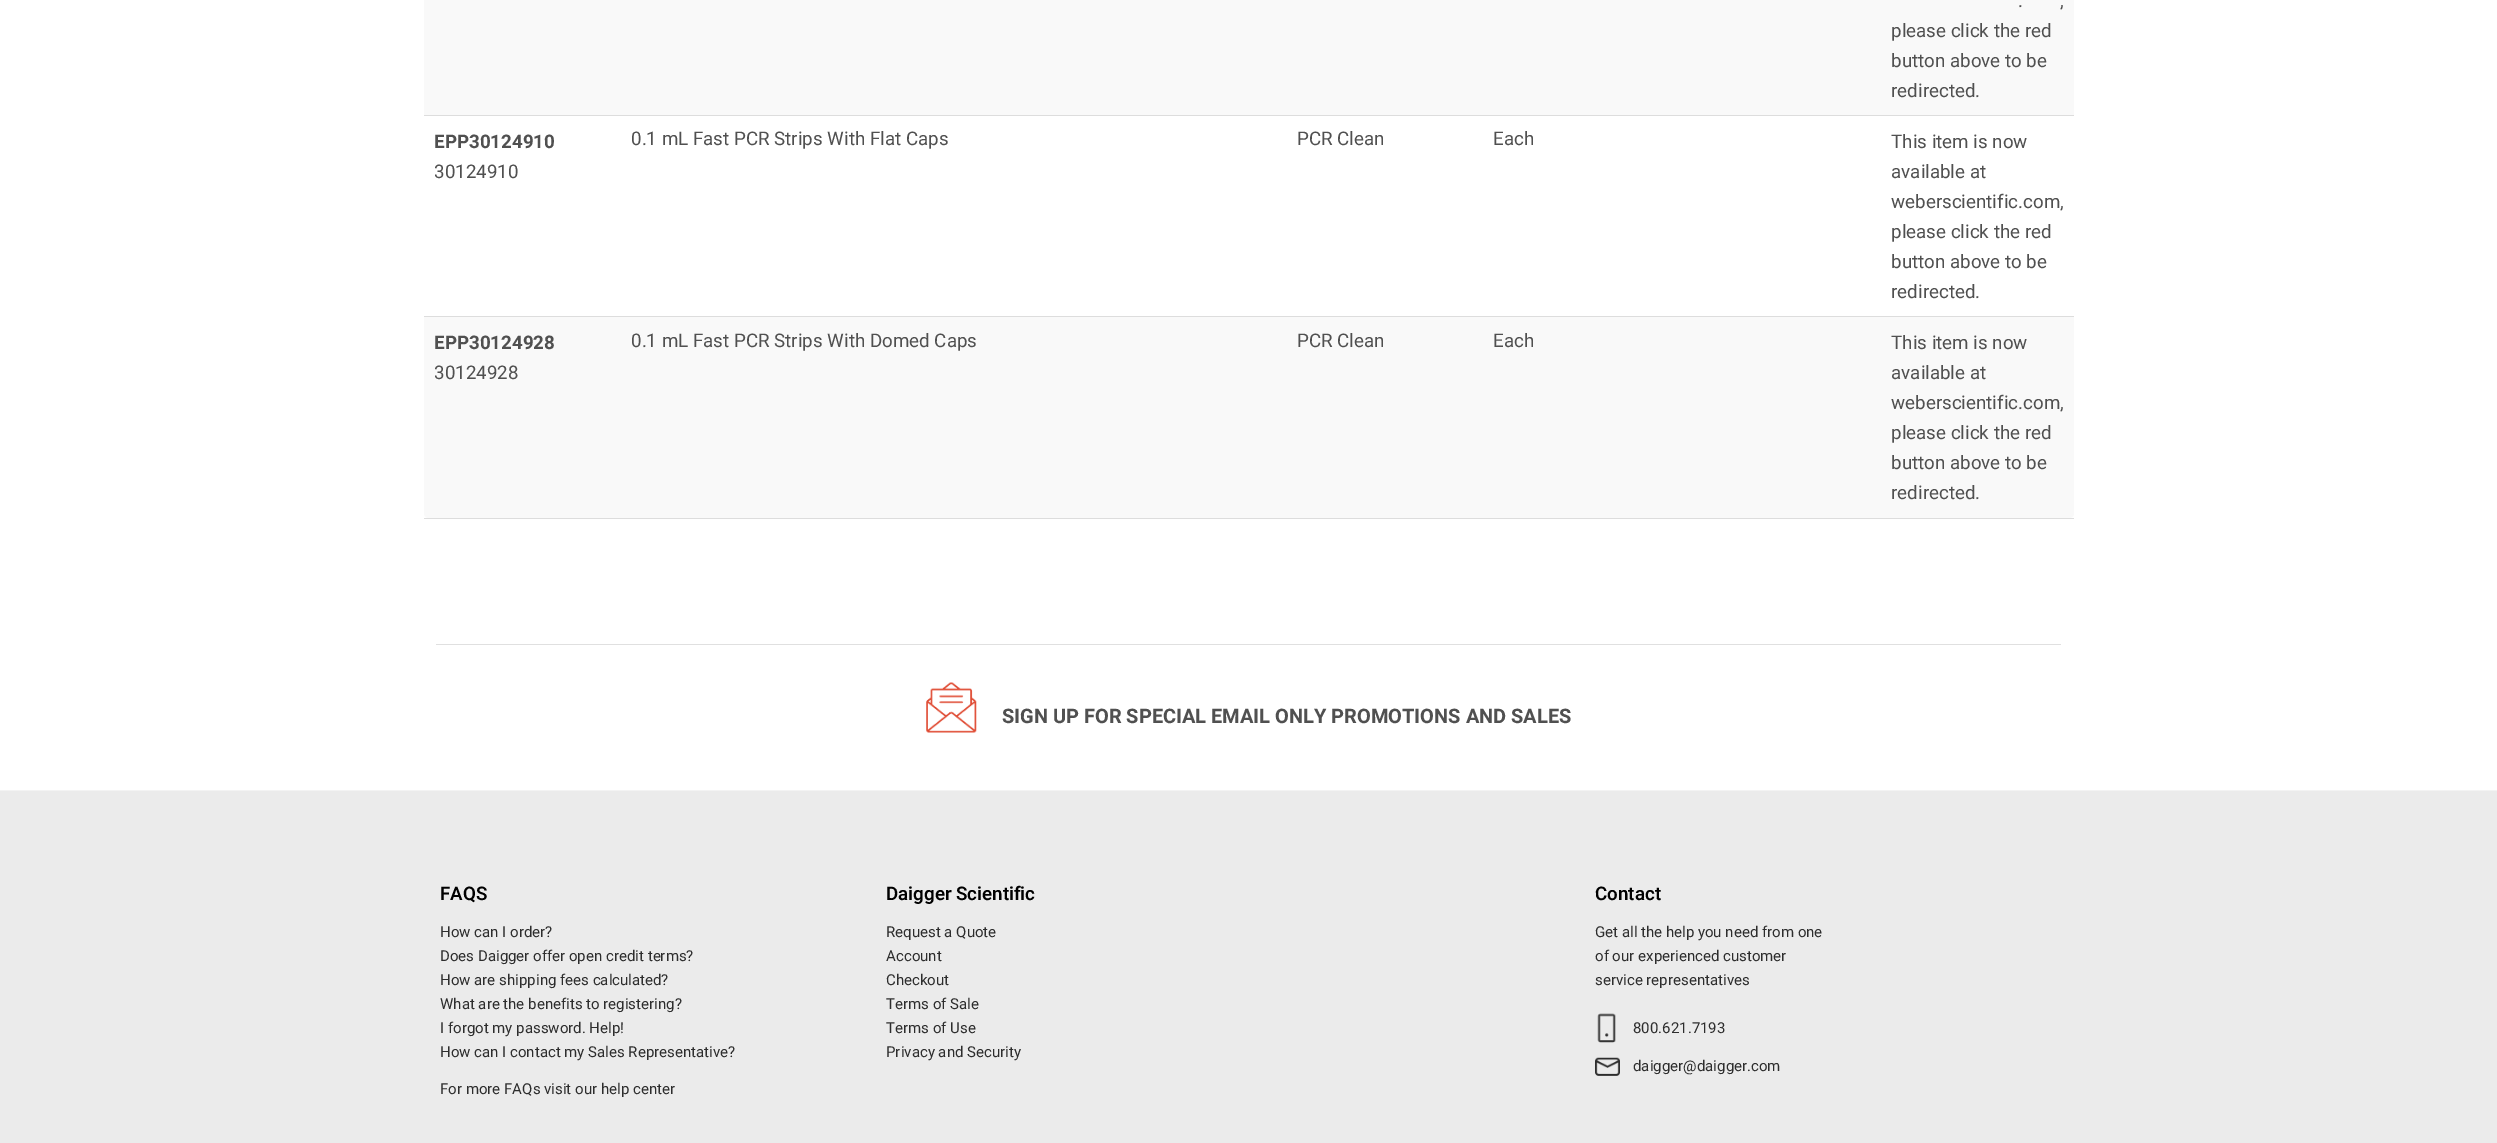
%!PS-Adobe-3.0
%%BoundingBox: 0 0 2497 1143
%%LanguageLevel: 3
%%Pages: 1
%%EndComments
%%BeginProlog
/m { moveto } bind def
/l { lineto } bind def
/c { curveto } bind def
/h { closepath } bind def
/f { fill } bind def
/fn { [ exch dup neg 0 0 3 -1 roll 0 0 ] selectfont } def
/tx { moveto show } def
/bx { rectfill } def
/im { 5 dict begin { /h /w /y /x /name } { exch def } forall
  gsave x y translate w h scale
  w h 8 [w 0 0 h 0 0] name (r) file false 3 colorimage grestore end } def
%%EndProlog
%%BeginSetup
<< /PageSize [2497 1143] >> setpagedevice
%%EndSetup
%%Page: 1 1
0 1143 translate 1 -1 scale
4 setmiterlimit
1 setgray
0 0 2497 1143 bx
0.867 setgray
424 518 1650 1 bx
0.976 setgray
424 0 1650 115 bx
/Heebo-Regular 18.75 fn
0.314 setgray
(.) 2018 7 tx
(,) 2060 7 tx
(please click the red) 1891 37 tx
(button above to be) 1891 67 tx
(redirected.) 1891 97 tx
0.867 setgray
424 115 1650 1 bx
/Heebo-Bold 18.75 fn
0.314 setgray
(EPP30124910) 434 148 tx
/Heebo-Regular 18.75 fn
(30124910) 434 178 tx
(0.1 mL Fast PCR Strips With Flat Caps) 631 145 tx
(PCR Clean) 1297 145 tx
(Each) 1493 145 tx
(This item is now) 1891 148 tx
(available at) 1891 178 tx
(weberscientific.com,) 1891 208 tx
(please click the red) 1891 238 tx
(button above to be) 1891 268 tx
(redirected.) 1891 298 tx
0.976 setgray
424 316 m 621 316 l 621 518 l 429 518 l 426 518 424 516 424 513 c h f
0.867 setgray
424 316 1457 1 bx
/Heebo-Bold 18.75 fn
0.314 setgray
(EPP30124928) 434 349 tx
/Heebo-Regular 18.75 fn
(30124928) 434 379 tx
0.976 setgray
621 317 1260 201 bx
0.314 setgray
(0.1 mL Fast PCR Strips With Domed Caps) 631 347 tx
(PCR Clean) 1297 347 tx
(Each) 1493 347 tx
0.976 setgray
1881 316 m 2074 316 l 2074 513 l 2074 516 2072 518 2069 518 c 1881 518 l h f
0.867 setgray
1881 316 193 1 bx
0.314 setgray
(This item is now) 1891 349 tx
(available at) 1891 379 tx
(weberscientific.com,) 1891 409 tx
(please click the red) 1891 439 tx
(button above to be) 1891 469 tx
(redirected.) 1891 499 tx
0.878 setgray
436 644 1625 1 bx
(image0.raw) 926 682 51 51 im
/Heebo-Bold 20 fn
0.314 setgray
(SIGN UP FOR SPECIAL EMAIL ONLY PROMOTIONS AND SALES) 1002 723 tx
0.922 setgray
0 791 2497 352 bx
0.953 setgray
0 790 2497 1 bx
/Heebo-SemiBold 18.75 fn
0 setgray
(FAQS) 440 900 tx
/Heebo-Regular 15 fn
0.176 setgray
(How can I order?) 440 937 tx
(Does Daigger offer open credit terms?) 440 961 tx
(How are shipping fees calculated?) 440 985 tx
(What are the benefits to registering?) 440 1009 tx
(I forgot my password. Help!) 440 1033 tx
(How can I contact my Sales Representative?) 440 1057 tx
(For more FAQs visit our help center) 440 1094 tx
/Heebo-SemiBold 18.75 fn
0 setgray
(Daigger Scientific) 886 900 tx
/Heebo-Regular 15 fn
0.176 setgray
(Request a Quote) 886 937 tx
(Account) 886 961 tx
(Checkout) 886 985 tx
(Terms of Sale) 886 1009 tx
(Terms of Use) 886 1033 tx
(Privacy and Security) 886 1057 tx
/Heebo-SemiBold 18.75 fn
0 setgray
(Contact) 1595 900 tx
/Heebo-Regular 15 fn
0.176 setgray
(Get all the help you need from one) 1595 937 tx
(of our experienced customer) 1595 961 tx
(service representatives) 1595 985 tx
(image1.raw) 1597 1013 19 30 im
(800.621.7193) 1633 1033 tx
(image2.raw) 1595 1057 25 19 im
(daigger@daigger.com) 1633 1071 tx
showpage
%%EOF
